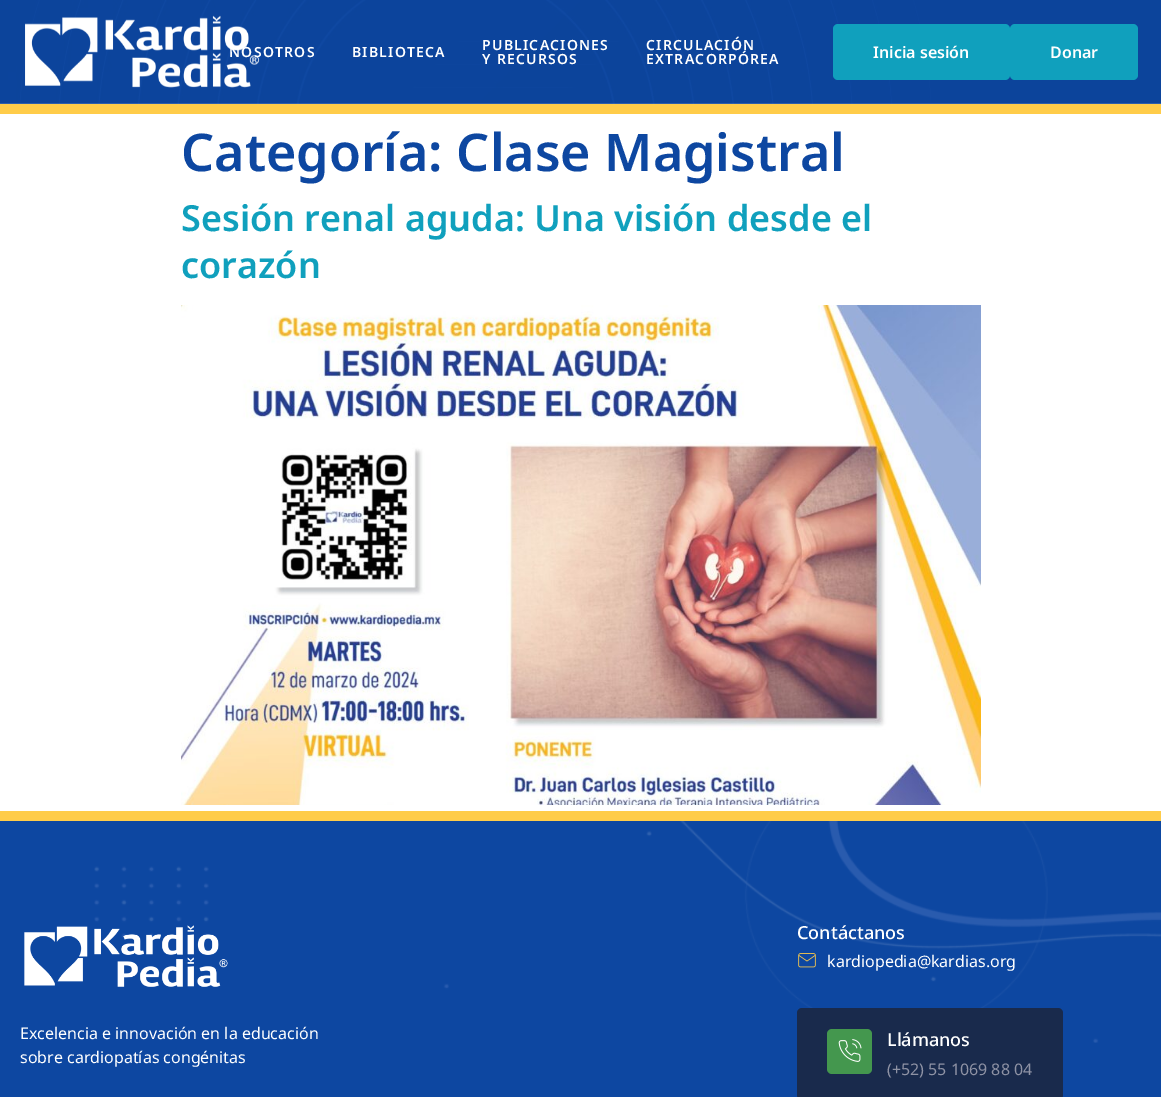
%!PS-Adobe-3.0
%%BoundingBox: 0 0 1161 1097
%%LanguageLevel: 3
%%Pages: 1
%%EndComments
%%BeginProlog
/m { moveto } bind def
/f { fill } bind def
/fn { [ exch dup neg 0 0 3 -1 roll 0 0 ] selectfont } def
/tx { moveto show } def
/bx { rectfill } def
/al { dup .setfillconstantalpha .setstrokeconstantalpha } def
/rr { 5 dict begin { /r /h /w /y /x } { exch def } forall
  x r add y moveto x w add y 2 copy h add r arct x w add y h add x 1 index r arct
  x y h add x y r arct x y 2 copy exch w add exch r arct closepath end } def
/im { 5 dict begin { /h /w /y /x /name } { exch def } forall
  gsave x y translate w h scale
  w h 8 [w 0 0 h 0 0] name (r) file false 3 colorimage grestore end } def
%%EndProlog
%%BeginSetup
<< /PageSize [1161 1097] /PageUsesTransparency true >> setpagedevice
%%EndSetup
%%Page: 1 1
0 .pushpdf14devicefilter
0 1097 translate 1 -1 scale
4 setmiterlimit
1 setgray
0 0 1161 1097 bx
0.051 0.278 0.631 setrgbcolor
0 0 1161 104 bx
1 0.8 0.286 setrgbcolor
0 104 1161 10 bx
(image0.raw) 0 0 1161 104 im
0.14 al
1 setgray
0 103 1161 1 bx
1 al
(image1.raw) 25 15 235 73 im
/NotoSans-SemiBold 14 fn
229 57 m 1.25 0 (NOSOTROS) ashow
352 57 m 1.25 0 (BIBLIOTECA) ashow
482 50 m 1.25 0 (PUBLICACIONES) ashow
482 64 m 1.25 0 (Y RECURSOS) ashow
646 50 m 1.25 0 (CIRCULACIÓN) ashow
646 64 m 1.25 0 (EXTRACORPÓREA) ashow
0.063 0.627 0.741 setrgbcolor
833 24 177 56 5 rr f
/NotoSans-SemiBold 16 fn
1 setgray
(Inicia sesión) 873 58 tx
0.063 0.627 0.741 setrgbcolor
1010 24 128 56 5 rr f
1 setgray
(Donar) 1050 58 tx
/NotoSans-SemiBold 52 fn
0.051 0.278 0.631 setrgbcolor
(Categoría: Clase Magistral) 181 171 tx
/NotoSans-SemiBold 36 fn
0.063 0.627 0.741 setrgbcolor
(Sesión renal aguda: Una visión desde el) 181 231 tx
(corazón) 181 278 tx
(image2.raw) 181 305 800 500 im
0.051 0.278 0.631 setrgbcolor
0 821 1161 276 bx
1 0.8 0.286 setrgbcolor
0 811 1161 10 bx
(image3.raw) 94 821 1067 222 im
(image4.raw) 24 925 204 62 im
/NotoSans-Regular 16 fn
1 setgray
(Excelencia e innovación en la educación) 20 1039 tx
(sobre cardiopatías congénitas) 20 1063 tx
/NotoSans-Medium 18 fn
(Contáctanos) 797 939 tx
(image5.raw) 798 953 18 15 im
/NotoSans-Regular 16 fn
(kardiopedia@kardias.org) 827 967 tx
0.098 0.165 0.298 setrgbcolor
797 1008 266 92 5 rr f
0.267 0.592 0.306 setrgbcolor
827 1029 45 45 5 rr f
(image6.raw) 838 1039 24 23 im
/NotoSans-Medium 18 fn
1 setgray
(Llámanos) 887 1046 tx
/NotoSans-Regular 16 fn
0.557 0.573 0.643 setrgbcolor
(\(+52\) 55 1069 88 04) 887 1075 tx
.poppdf14devicefilter showpage
%%EOF
